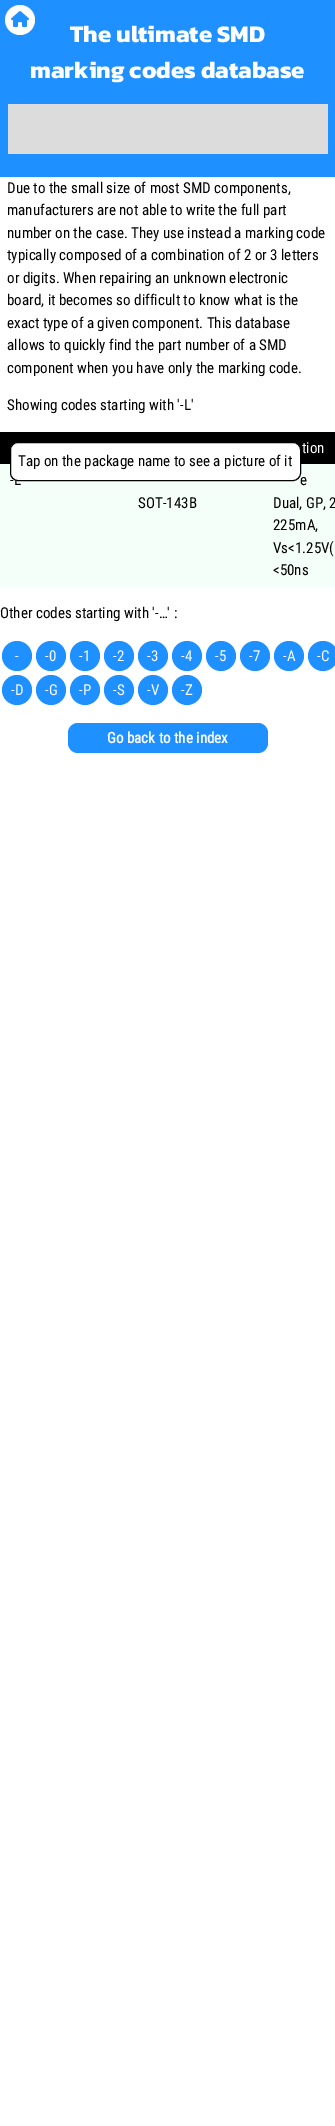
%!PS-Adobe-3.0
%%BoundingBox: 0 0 335 2126
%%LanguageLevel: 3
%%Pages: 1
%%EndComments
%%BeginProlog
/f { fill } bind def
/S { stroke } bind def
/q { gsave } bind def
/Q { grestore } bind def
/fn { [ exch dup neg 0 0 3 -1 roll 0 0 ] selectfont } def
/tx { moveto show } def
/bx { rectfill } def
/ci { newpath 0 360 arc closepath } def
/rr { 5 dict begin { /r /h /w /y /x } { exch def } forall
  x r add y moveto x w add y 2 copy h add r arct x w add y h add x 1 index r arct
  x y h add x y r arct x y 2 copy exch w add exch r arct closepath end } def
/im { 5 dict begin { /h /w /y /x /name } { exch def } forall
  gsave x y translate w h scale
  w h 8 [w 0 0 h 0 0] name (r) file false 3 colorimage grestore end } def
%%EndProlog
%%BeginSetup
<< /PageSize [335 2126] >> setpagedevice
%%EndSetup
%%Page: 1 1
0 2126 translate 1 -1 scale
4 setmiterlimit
1 setgray
0 0 335 2126 bx
0.118 0.565 1 setrgbcolor
0 0 335 177 bx
1 setgray
20 20 15 ci f
(image0.raw) 11 11 18 17 im
/Kanit-Bold 24 fn
(The ultimate SMD) 70 42 tx
(marking codes database) 30 78 tx
0.863 setgray
8 104 320 50 bx
/RobotoCondensed-Regular 15 fn
0 setgray
(Due to the small size of most SMD components,) 7 193 tx
(manufacturers are not able to write the full part) 7 215 tx
(number on the case. They use instead a marking code) 7 238 tx
(typically composed of a combination of 2 or 3 letters) 7 260 tx
(or digits. When repairing an unknown electronic) 7 283 tx
(board, it becomes so difficult to know what is the) 7 305 tx
(exact type of a given component. This database) 7 328 tx
(allows to quickly find the part number of a SMD) 7 350 tx
(component when you have only the marking code.) 7 373 tx
(Showing codes starting with '-L') 7 410 tx
0 432 335 32 bx
1 setgray
(tion) 302 453 tx
0.961 1 0.98 setrgbcolor
0 464 335 123 bx
0 setgray
(-L) 10 485 tx
(e) 300 485 tx
1 setgray
10.5 442.5 290 38 7.5 rr q f Q
0 setgray
S
(Tap on the package name to see a picture of it) 18 466 tx
(SOT-143B) 138 508 tx
(Dual, GP, 2) 273 508 tx
(225mA,) 273 530 tx
(Vs<1.25V\() 273 553 tx
(<50ns) 273 575 tx
(Other codes starting with '-…' :) 0 618 tx
0.118 0.565 1 setrgbcolor
17 656 15 ci f
1 setgray
(-) 15 661 tx
0.118 0.565 1 setrgbcolor
51 656 15 ci f
1 setgray
(-0) 45 661 tx
0.118 0.565 1 setrgbcolor
85 656 15 ci f
1 setgray
(-1) 79 661 tx
0.118 0.565 1 setrgbcolor
119 656 15 ci f
1 setgray
(-2) 113 661 tx
0.118 0.565 1 setrgbcolor
153 656 15 ci f
1 setgray
(-3) 147 661 tx
0.118 0.565 1 setrgbcolor
187 656 15 ci f
1 setgray
(-4) 181 661 tx
0.118 0.565 1 setrgbcolor
221 656 15 ci f
1 setgray
(-5) 215 661 tx
0.118 0.565 1 setrgbcolor
255 656 15 ci f
1 setgray
(-7) 249 661 tx
0.118 0.565 1 setrgbcolor
289 656 15 ci f
1 setgray
(-A) 283 661 tx
0.118 0.565 1 setrgbcolor
323 656 15 ci f
1 setgray
(-C) 317 661 tx
0.118 0.565 1 setrgbcolor
17 690 15 ci f
1 setgray
(-D) 11 695 tx
0.118 0.565 1 setrgbcolor
51 690 15 ci f
1 setgray
(-G) 45 695 tx
0.118 0.565 1 setrgbcolor
85 690 15 ci f
1 setgray
(-P) 79 695 tx
0.118 0.565 1 setrgbcolor
119 690 15 ci f
1 setgray
(-S) 113 695 tx
0.118 0.565 1 setrgbcolor
153 690 15 ci f
1 setgray
(-V) 147 695 tx
0.118 0.565 1 setrgbcolor
187 690 15 ci f
1 setgray
(-Z) 181 695 tx
0.118 0.565 1 setrgbcolor
68 723 200 30 10 rr f
/RobotoCondensed-Bold 15 fn
1 setgray
(Go back to the index) 107 743 tx
showpage
%%EOF
